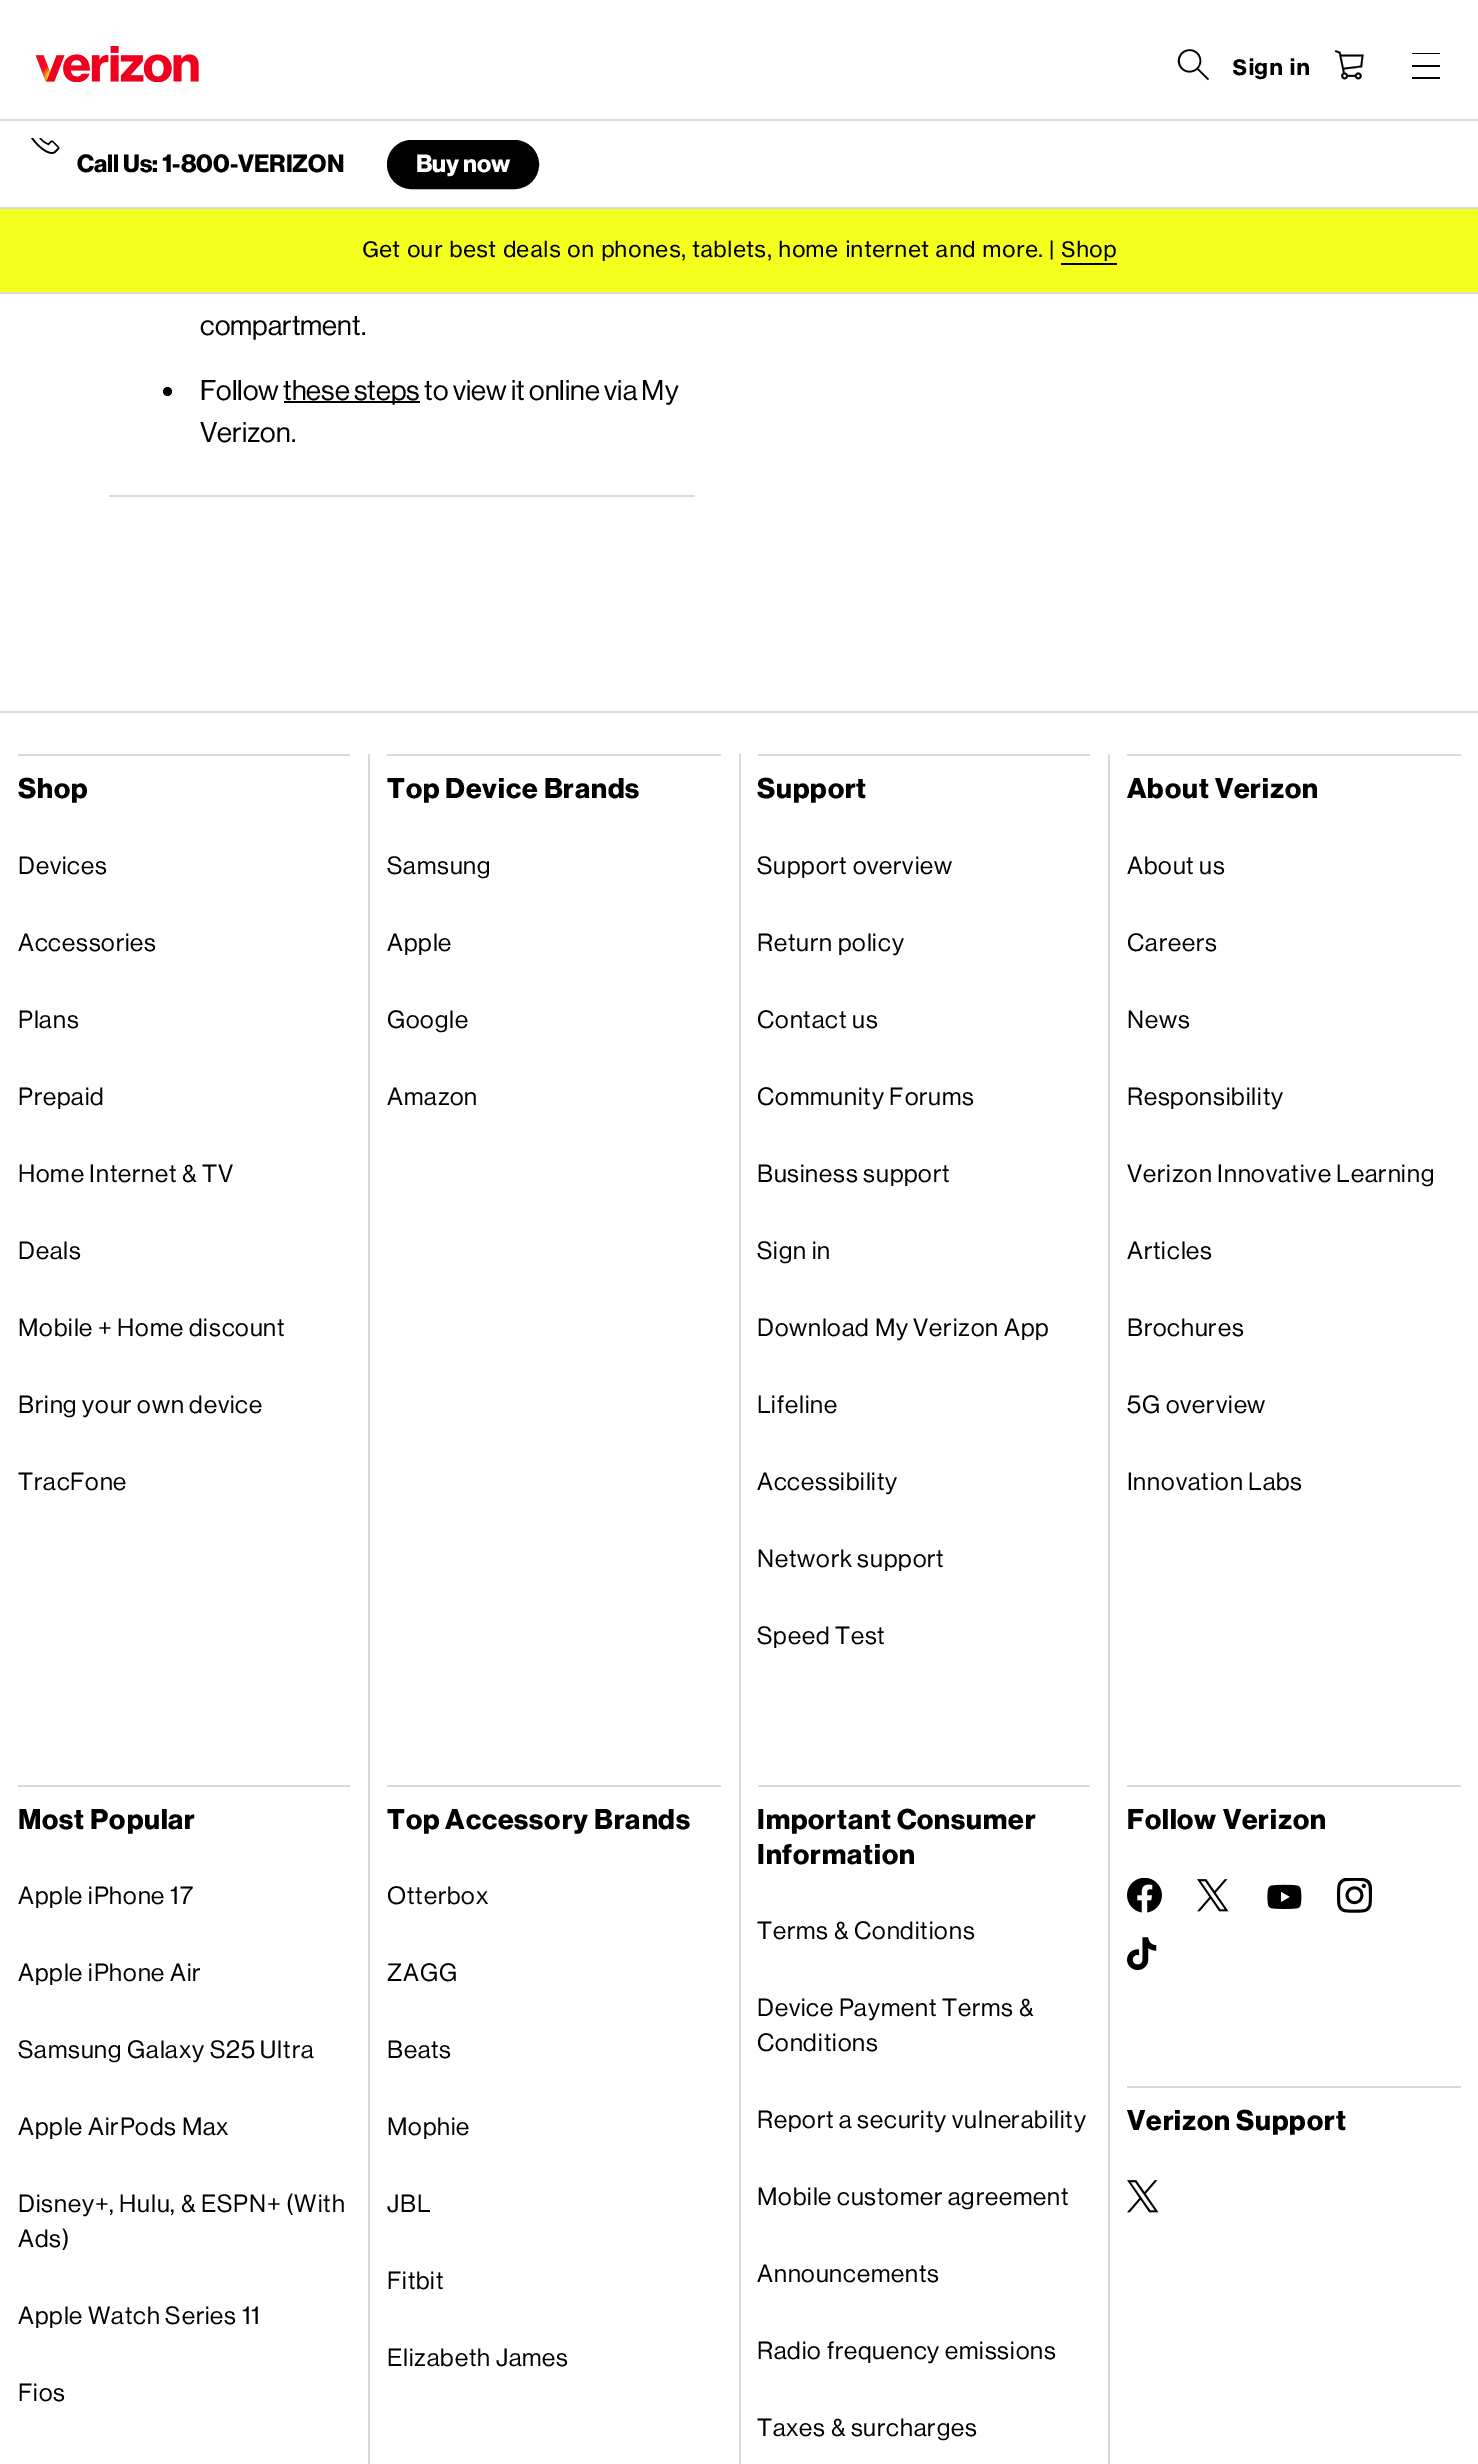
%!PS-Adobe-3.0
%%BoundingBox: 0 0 1478 2464
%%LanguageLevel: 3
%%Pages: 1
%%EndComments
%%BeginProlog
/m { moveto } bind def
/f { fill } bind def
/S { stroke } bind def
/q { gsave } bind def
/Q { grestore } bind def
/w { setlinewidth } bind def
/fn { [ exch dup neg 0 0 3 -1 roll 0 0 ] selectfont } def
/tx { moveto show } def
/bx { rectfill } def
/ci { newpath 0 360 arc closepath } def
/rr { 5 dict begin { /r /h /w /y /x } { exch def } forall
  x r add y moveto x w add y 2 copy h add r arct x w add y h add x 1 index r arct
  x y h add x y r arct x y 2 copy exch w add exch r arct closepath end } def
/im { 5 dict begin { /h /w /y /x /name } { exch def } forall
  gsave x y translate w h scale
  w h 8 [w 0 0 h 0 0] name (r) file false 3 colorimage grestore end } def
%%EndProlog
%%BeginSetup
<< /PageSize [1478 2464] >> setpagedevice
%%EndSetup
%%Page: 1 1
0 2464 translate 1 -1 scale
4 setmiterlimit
1 setgray
0 0 1478 2464 bx
0.847 0.855 0.855 setrgbcolor
0 292 1478 2 bx
(image0.raw) 35 46 164 36 im
(image1.raw) 1177 49 32 32 im
/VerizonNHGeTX-Bold 21 fn
0 setgray
(Sign in) 1232 75 tx
(image2.raw) 1334 50 30 30 im
1412 53 28 1 bx
1412 77 28 2 bx
1412 65 28 2 bx
0.847 0.855 0.855 setrgbcolor
0 119 1478 2 bx
(image3.raw) 31 138 29 16 im
/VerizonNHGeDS-Bold 24.5 fn
0 setgray
(Call Us: 1-800-VERIZON) 77 172 tx
388 141 150 47 23.5 rr q f Q
2 w
S
1 setgray
(Buy now) 416 172 tx
0.961 1 0.118 setrgbcolor
0 209 1478 83 bx
0.847 0.855 0.855 setrgbcolor
0 207 1478 2 bx
/VerizonNHGeTX-Regular 21 fn
0 setgray
(Get our best deals on phones, tablets, home internet and more. | Shop) 362 257 tx
1061 263 56 2 bx
0.847 0.855 0.855 setrgbcolor
109 495 586 2 bx
/VerizonNHGeDS-Regular 28 fn
0 setgray
(compartment.) 200 335 tx
167.5 391.5 4.5 ci f
(Follow) 200 400 tx
284 401 136 2 bx
(these steps to view it online via My) 283 400 tx
(Verizon.) 200 442 tx
0.847 0.855 0.855 setrgbcolor
0 711 1478 2 bx
368 754 2 1710 bx
18 754 332 2 bx
/VerizonNHGeDS-Bold 28 fn
0 setgray
18 798 m 0.9 0 (Shop) ashow
/VerizonNHGeDS-Regular 24.5 fn
18 874 m 0.9 0 (Devices) ashow
18 951 m 0.9 0 (Accessories) ashow
18 1028 m 0.9 0 (Plans) ashow
18 1105 m 0.9 0 (Prepaid) ashow
18 1182 m 0.9 0 (Home Internet & TV) ashow
18 1259 m 0.9 0 (Deals) ashow
18 1336 m 0.9 0 (Mobile + Home discount) ashow
18 1413 m 0.9 0 (Bring your own device) ashow
18 1490 m 0.9 0 (TracFone) ashow
0.847 0.855 0.855 setrgbcolor
739 754 2 1710 bx
387 754 334 2 bx
/VerizonNHGeDS-Bold 28 fn
0 setgray
387 798 m 0.9 0 (Top Device Brands) ashow
/VerizonNHGeDS-Regular 24.5 fn
387 874 m 0.9 0 (Samsung) ashow
387 951 m 0.9 0 (Apple) ashow
387 1028 m 0.9 0 (Google) ashow
387 1105 m 0.9 0 (Amazon) ashow
0.847 0.855 0.855 setrgbcolor
1108 754 2 1710 bx
758 754 332 2 bx
/VerizonNHGeDS-Bold 28 fn
0 setgray
757 798 m 0.9 0 (Support) ashow
/VerizonNHGeDS-Regular 24.5 fn
757 874 m 0.9 0 (Support overview) ashow
757 951 m 0.9 0 (Return policy) ashow
757 1028 m 0.9 0 (Contact us) ashow
757 1105 m 0.9 0 (Community Forums) ashow
757 1182 m 0.9 0 (Business support) ashow
757 1259 m 0.9 0 (Sign in) ashow
757 1336 m 0.9 0 (Download My Verizon App) ashow
757 1413 m 0.9 0 (Lifeline) ashow
757 1490 m 0.9 0 (Accessibility) ashow
757 1567 m 0.9 0 (Network support) ashow
757 1644 m 0.9 0 (Speed Test) ashow
0.847 0.855 0.855 setrgbcolor
1127 754 334 2 bx
/VerizonNHGeDS-Bold 28 fn
0 setgray
1127 798 m 0.9 0 (About Verizon) ashow
/VerizonNHGeDS-Regular 24.5 fn
1127 874 m 0.9 0 (About us) ashow
1127 951 m 0.9 0 (Careers) ashow
1127 1028 m 0.9 0 (News) ashow
1127 1105 m 0.9 0 (Responsibility) ashow
1127 1182 m 0.9 0 (Verizon Innovative Learning) ashow
1127 1259 m 0.9 0 (Articles) ashow
1127 1336 m 0.9 0 (Brochures) ashow
1127 1413 m 0.9 0 (5G overview) ashow
1127 1490 m 0.9 0 (Innovation Labs) ashow
0.847 0.855 0.855 setrgbcolor
18 1785 332 2 bx
/VerizonNHGeDS-Bold 28 fn
0 setgray
18 1829 m 0.9 0 (Most Popular) ashow
/VerizonNHGeDS-Regular 24.5 fn
18 1904 m 0.9 0 (Apple iPhone 17) ashow
18 1981 m 0.9 0 (Apple iPhone Air) ashow
18 2058 m 0.9 0 (Samsung Galaxy S25 Ultra) ashow
18 2135 m 0.9 0 (Apple AirPods Max) ashow
18 2212 m 0.9 0 (Disney+, Hulu, & ESPN+ \(With) ashow
18 2247 m 0.9 0 (Ads\)) ashow
18 2324 m 0.9 0 (Apple Watch Series 11) ashow
18 2401 m 0.9 0 (Fios) ashow
0.847 0.855 0.855 setrgbcolor
387 1785 334 2 bx
/VerizonNHGeDS-Bold 28 fn
0 setgray
387 1829 m 0.9 0 (Top Accessory Brands) ashow
/VerizonNHGeDS-Regular 24.5 fn
387 1904 m 0.9 0 (Otterbox) ashow
387 1981 m 0.9 0 (ZAGG) ashow
387 2058 m 0.9 0 (Beats) ashow
387 2135 m 0.9 0 (Mophie) ashow
387 2212 m 0.9 0 (JBL) ashow
387 2289 m 0.9 0 (Fitbit) ashow
387 2366 m 0.9 0 (Elizabeth James) ashow
0.847 0.855 0.855 setrgbcolor
758 1785 332 2 bx
/VerizonNHGeDS-Bold 28 fn
0 setgray
757 1829 m 0.9 0 (Important Consumer) ashow
757 1864 m 0.9 0 (Information) ashow
/VerizonNHGeDS-Regular 24.5 fn
757 1939 m 0.9 0 (Terms & Conditions) ashow
757 2016 m 0.9 0 (Device Payment Terms &) ashow
757 2051 m 0.9 0 (Conditions) ashow
757 2128 m 0.9 0 (Report a security vulnerability) ashow
757 2205 m 0.9 0 (Mobile customer agreement) ashow
757 2282 m 0.9 0 (Announcements) ashow
757 2359 m 0.9 0 (Radio frequency emissions) ashow
757 2436 m 0.9 0 (Taxes & surcharges) ashow
0.847 0.855 0.855 setrgbcolor
1127 1785 334 2 bx
/VerizonNHGeDS-Bold 28 fn
0 setgray
1127 1829 m 0.9 0 (Follow Verizon) ashow
(image4.raw) 1127 1878 35 35 im
(image5.raw) 1197 1879 32 33 im
(image6.raw) 1267 1884 35 25 im
(image7.raw) 1337 1878 35 35 im
(image8.raw) 1127 1937 30 34 im
0.847 0.855 0.855 setrgbcolor
1127 2086 334 2 bx
0 setgray
1127 2130 m 0.9 0 (Verizon Support) ashow
(image5.raw) 1127 2180 32 33 im
showpage
%%EOF
